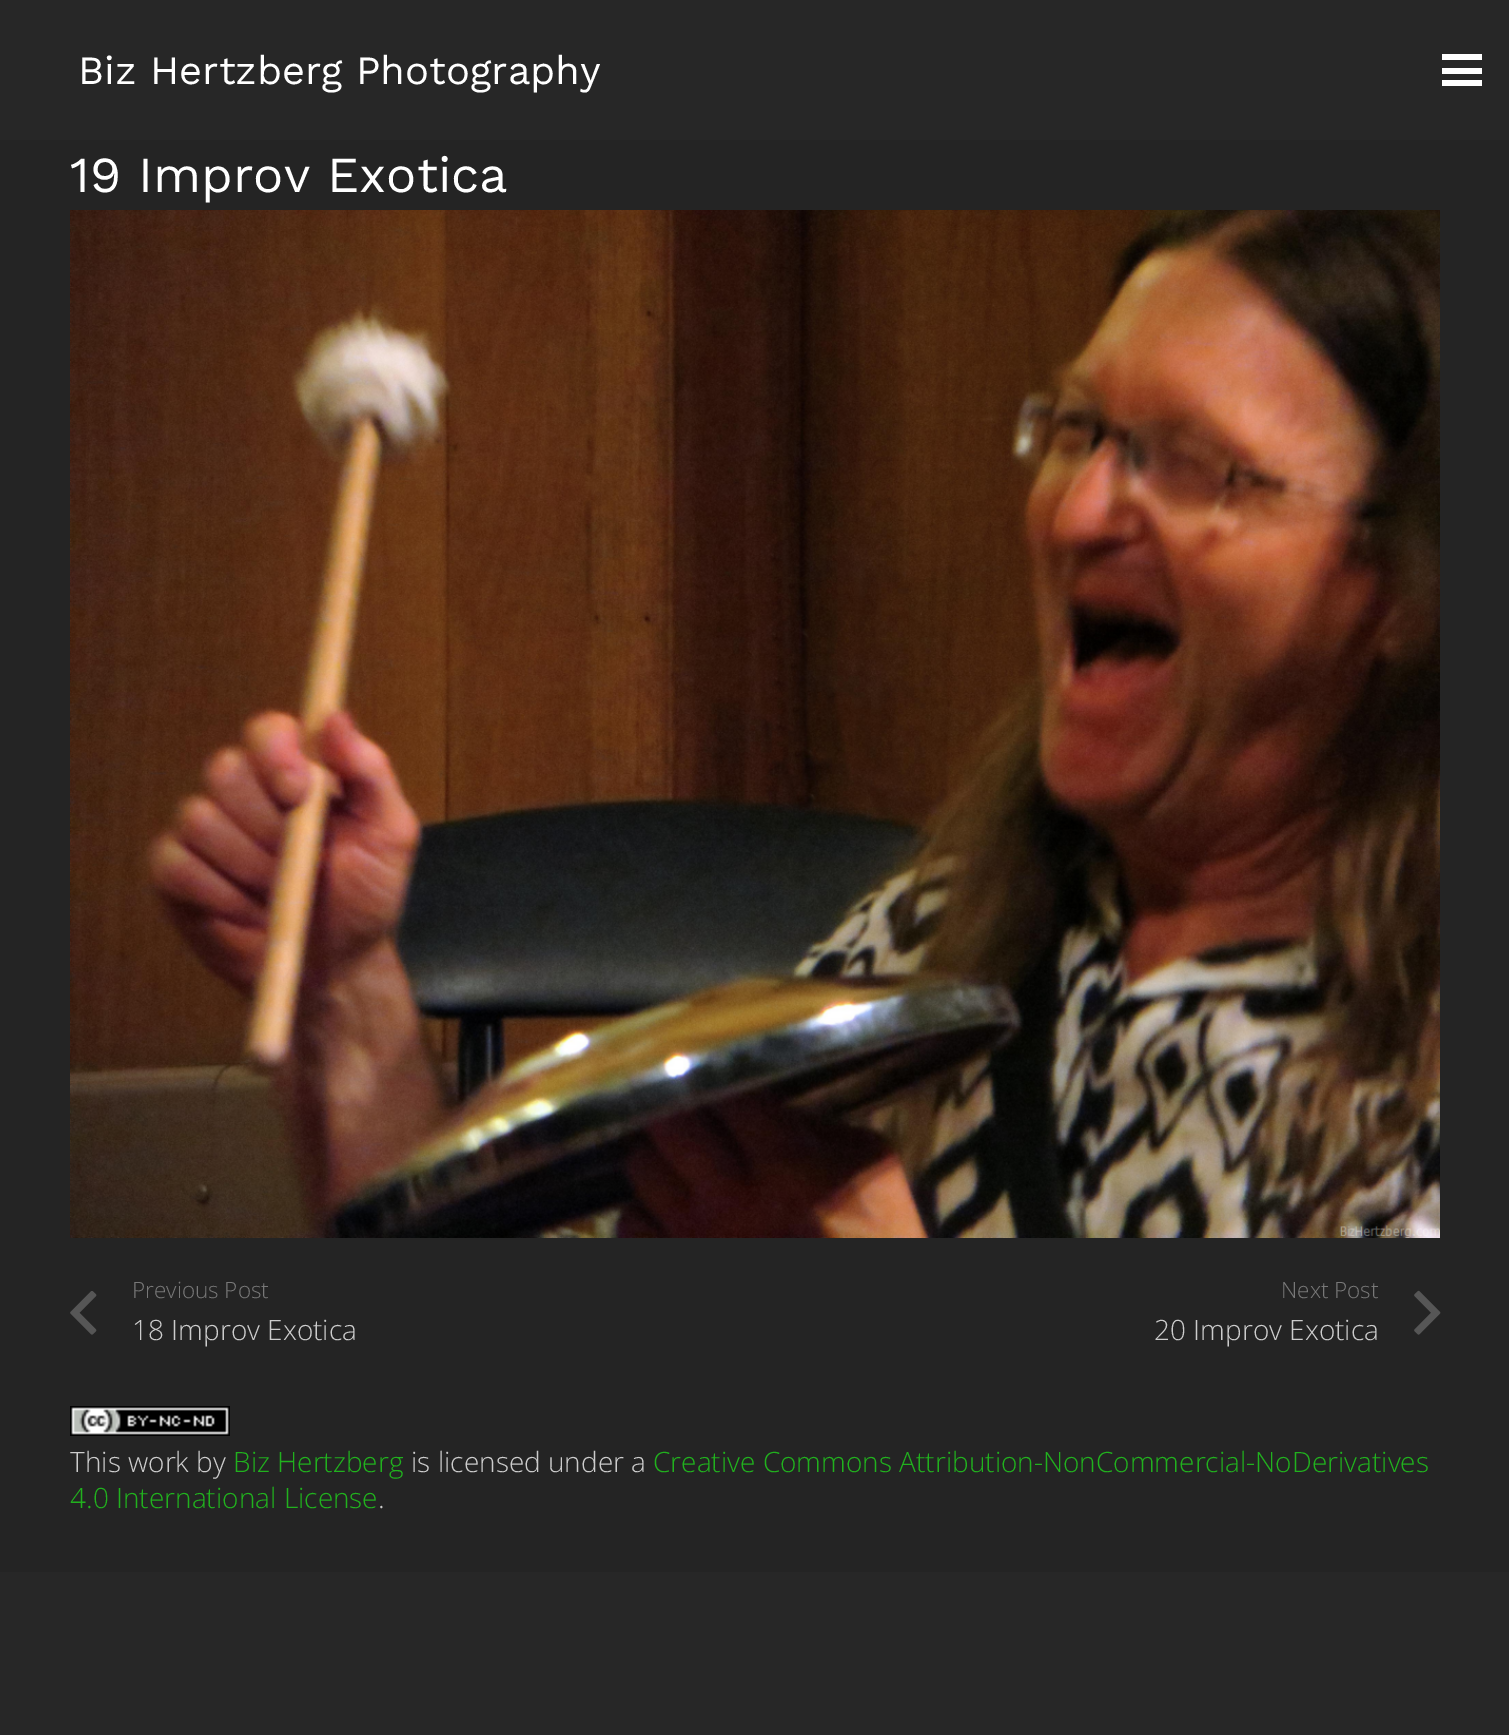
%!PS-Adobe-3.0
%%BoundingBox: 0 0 1509 1735
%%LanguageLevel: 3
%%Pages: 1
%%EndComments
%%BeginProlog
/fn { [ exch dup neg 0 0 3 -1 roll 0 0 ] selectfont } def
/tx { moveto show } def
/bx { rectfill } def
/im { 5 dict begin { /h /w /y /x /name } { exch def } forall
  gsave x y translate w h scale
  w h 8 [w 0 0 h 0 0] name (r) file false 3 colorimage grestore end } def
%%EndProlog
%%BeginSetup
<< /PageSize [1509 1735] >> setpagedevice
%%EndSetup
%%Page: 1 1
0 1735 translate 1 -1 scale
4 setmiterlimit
0.153 setgray
0 0 1509 1735 bx
0.141 setgray
0 140 1509 1432 bx
/WorkSans-Regular 40 fn
1 setgray
(Biz Hertzberg Photography) 78 84 tx
1442 68 40 6 bx
1442 54 40 6 bx
1442 80 40 6 bx
/WorkSans-Regular 50.5 fn
(19 Improv Exotica) 70 192 tx
(image0.raw) 70 210 1370 1028 im
(image1.raw) 70 1291 27 44 im
/OpenSans-Light 22.5 fn
0.471 setgray
(Previous Post) 132 1298 tx
/OpenSans-Light 28 fn
0.8 setgray
(18 Improv Exotica) 132 1340 tx
/OpenSans-Light 22.5 fn
0.471 setgray
(Next Post) 1281 1298 tx
(image2.raw) 1414 1290 27 45 im
/OpenSans-Light 28 fn
0.8 setgray
(20 Improv Exotica) 1154 1340 tx
(image3.raw) 70 1406 160 30 im
(This work by) 70 1472 tx
0.129 0.694 0.118 setrgbcolor
(Biz Hertzberg) 233 1472 tx
0.8 setgray
(is licensed under a) 411 1472 tx
0.129 0.694 0.118 setrgbcolor
(Creative Commons Attribution-NonCommercial-NoDerivatives) 653 1472 tx
(4.0 International License) 70 1508 tx
0.8 setgray
(.) 378 1508 tx
showpage
%%EOF
